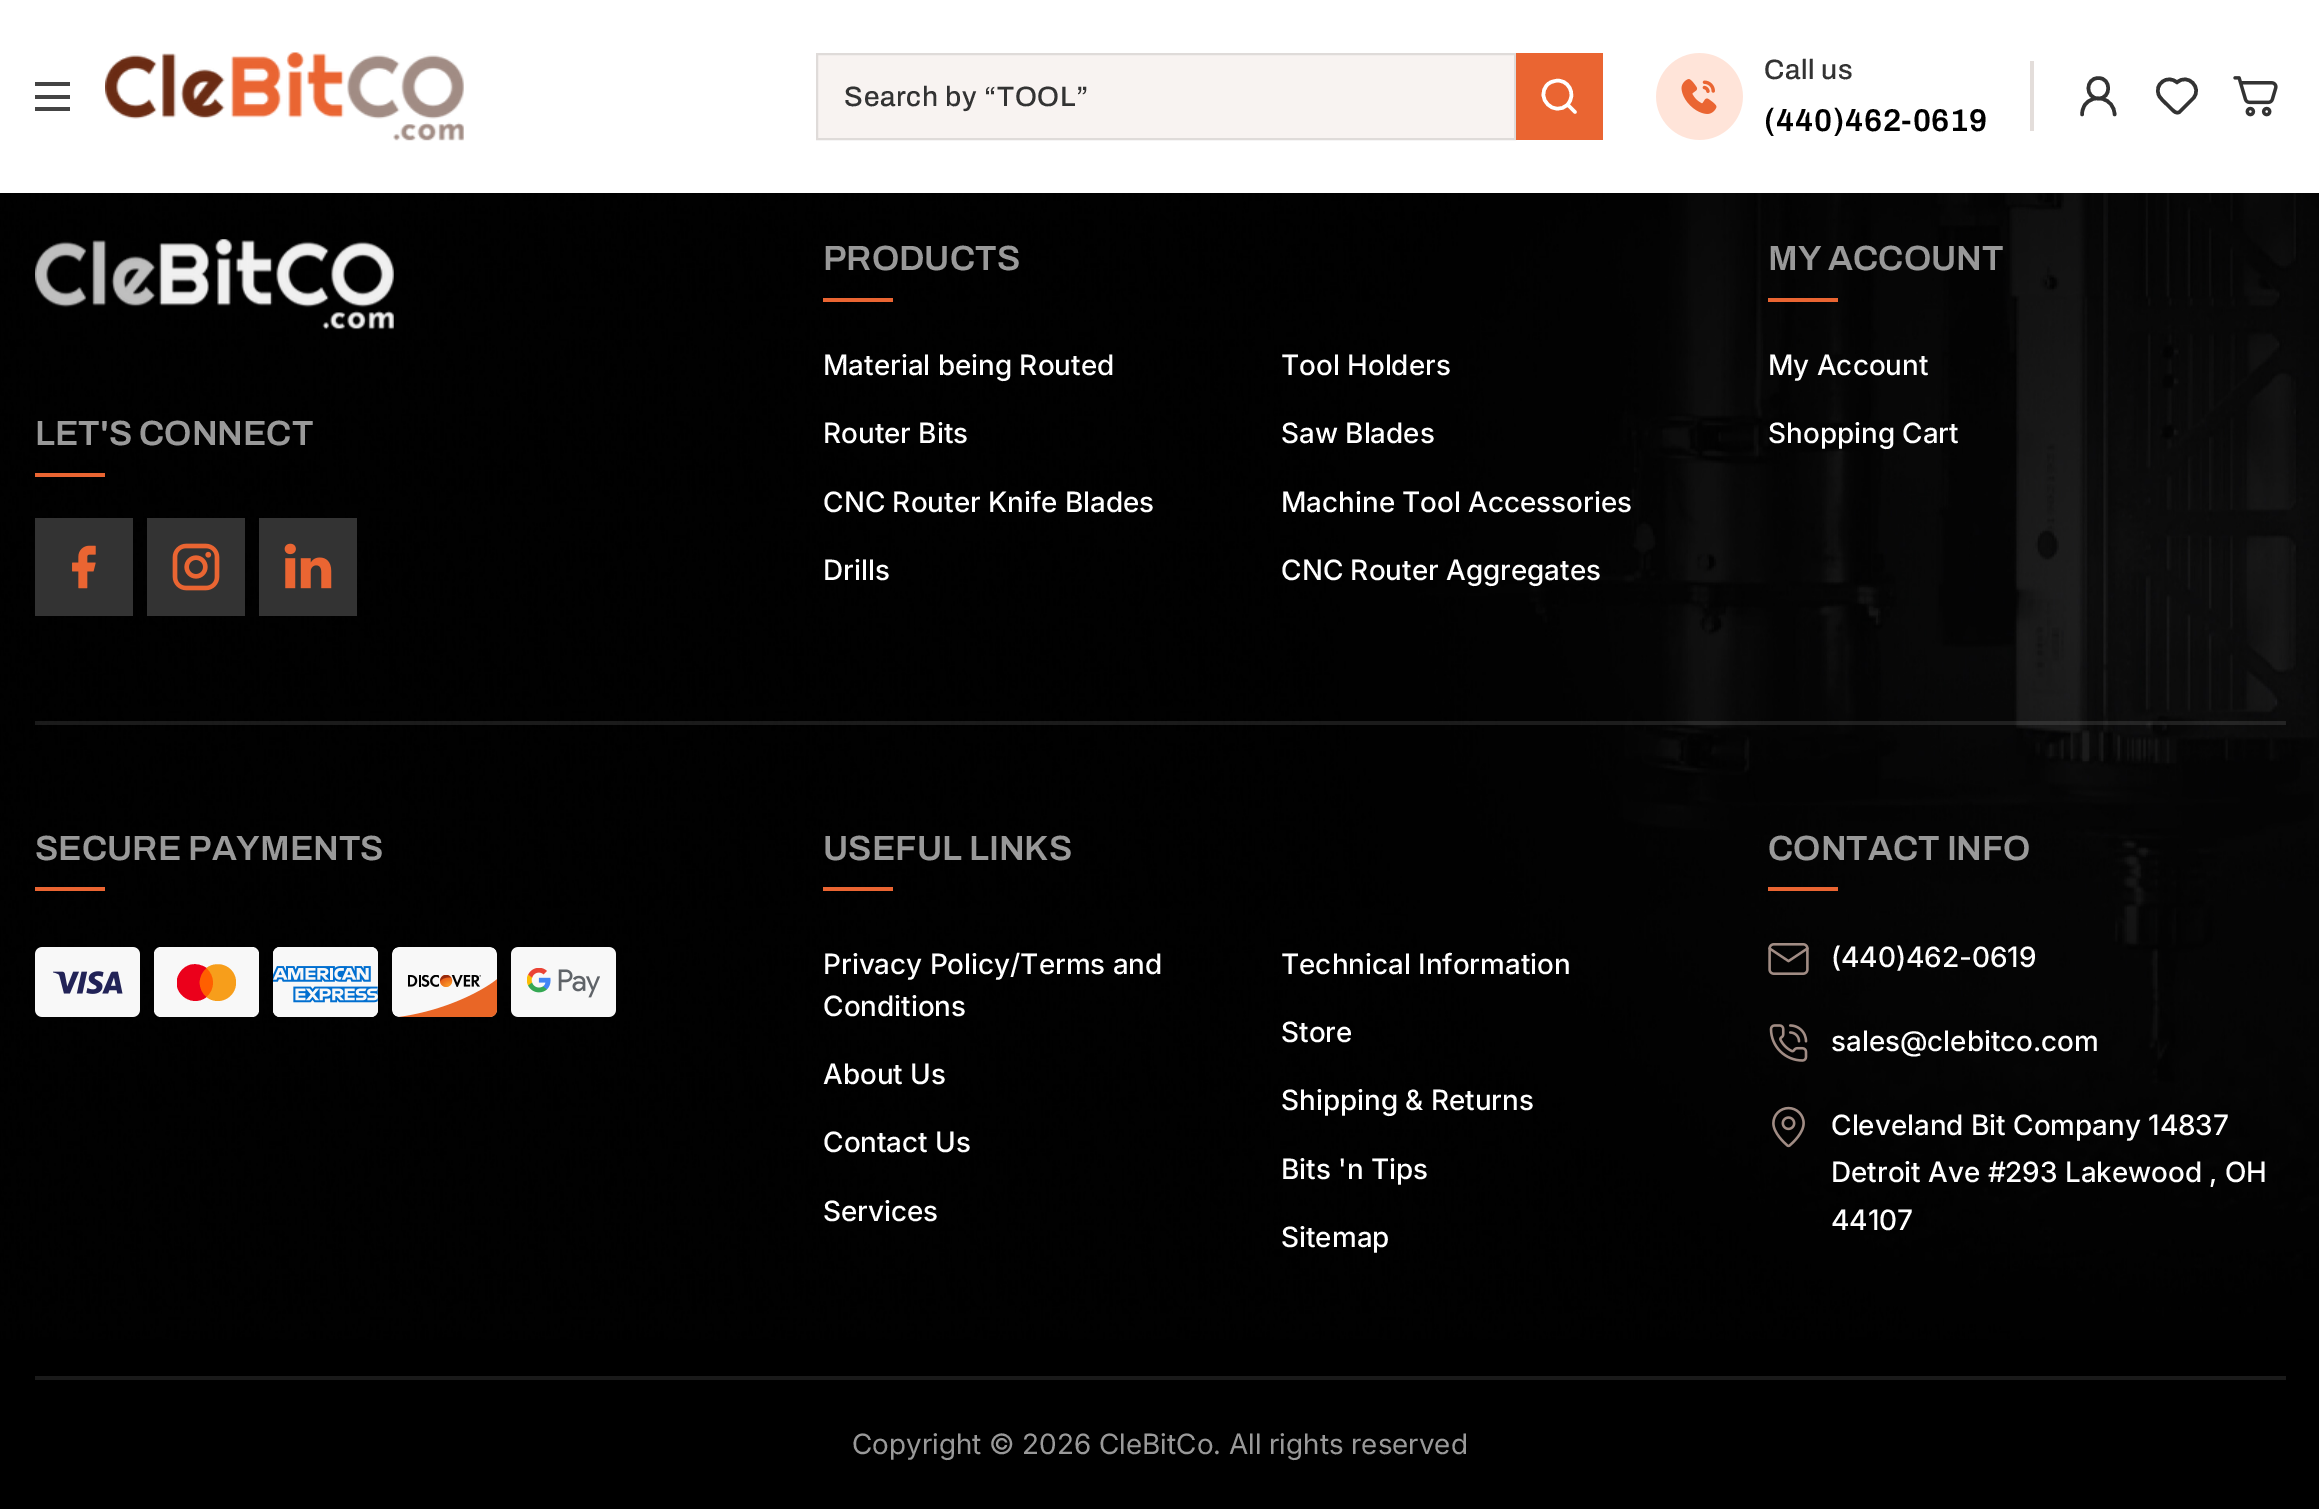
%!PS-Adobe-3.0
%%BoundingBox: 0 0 2319 1509
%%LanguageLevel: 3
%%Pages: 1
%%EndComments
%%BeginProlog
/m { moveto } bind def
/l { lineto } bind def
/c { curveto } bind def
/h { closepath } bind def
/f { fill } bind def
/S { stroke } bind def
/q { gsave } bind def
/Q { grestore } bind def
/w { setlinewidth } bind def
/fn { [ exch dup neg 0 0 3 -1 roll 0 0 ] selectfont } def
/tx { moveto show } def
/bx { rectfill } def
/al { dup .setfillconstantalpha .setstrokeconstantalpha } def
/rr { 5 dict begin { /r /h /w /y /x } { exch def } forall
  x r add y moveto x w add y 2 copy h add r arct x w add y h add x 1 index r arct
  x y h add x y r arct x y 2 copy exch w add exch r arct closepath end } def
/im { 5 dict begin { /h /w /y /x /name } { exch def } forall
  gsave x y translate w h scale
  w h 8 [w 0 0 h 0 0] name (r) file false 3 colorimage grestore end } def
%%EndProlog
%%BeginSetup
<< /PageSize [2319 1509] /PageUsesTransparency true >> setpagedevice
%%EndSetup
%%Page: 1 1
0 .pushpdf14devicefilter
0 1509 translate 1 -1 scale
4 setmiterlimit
1 setgray
0 0 2319 1509 bx
0.267 setgray
35 95 35 4 bx
35 82 35 4 bx
35 107 35 4 bx
(image0.raw) 105 52 359 89 im
0.973 0.953 0.945 setrgbcolor
817 54 m 1515 54 l 1515 139 l 817 139 l h q f Q
0.875 0.859 0.851 setrgbcolor
2 w
S
/Archivo-Medium 28 fn
0.2 setgray
844 106 m 0.75 0 (Search by “TOOL”) ashow
0.918 0.396 0.196 setrgbcolor
1516 53 87 87 bx
1 setgray
3.5 w
1 setlinecap
1 setlinejoin
1575 112 m 1567.5 104.5 l 1567.5 104.5 m 1577 94.5 1568 78 1555 81 c 1552 81.5 1549.5 82.5 1547.5 84.5 c 1534.5 98 1554.5 117.5 1567.5 104.5 c h S
(image1.raw) 1656 53 87 87 im
0.2 setgray
1764 79 m 0.5 0 (Call us) ashow
/Archivo-SemiBold 31.5 fn
0 setgray
1764 131 m 0.75 0 (\(440\)462-0619) ashow
0.89 0.867 0.855 setrgbcolor
2030 61 4 70 bx
0.2 setgray
2098.5 98.5 m 2111.5 98.5 2111.5 78 2098.5 78 c 2085 78 2085 98.5 2098.5 98.5 c h 2114.5 114.5 m 2114.5 98.5 2093.5 92 2084.5 105.5 c 2083 108 2082 111.5 2082 114.5 c S
2193 98.5 m 2179.5 112 l 2176.5 114 2174 111.5 2171.5 109 c 2167.5 105 l 2164.5 102 2160.5 99 2159 95.5 c 2153.5 84 2168 74 2177 82.5 c 2187.5 72.5 2203 88 2193 98.5 c h S
(image2.raw) 2233 76 45 41 im
(image3.raw) 0 193 2319 1316 im
(image4.raw) 35 239 359 91 im
/Archivo-SemiBold 35 fn
0.6 setgray
(LET'S CONNECT) 35 445 tx
0.918 0.396 0.196 setrgbcolor
35 473 70 4 bx
0.2 setgray
35 518 98 98 bx
(image5.raw) 72 545 24 44 im
147 518 98 98 bx
(image6.raw) 172 543 48 48 im
259 518 98 98 bx
(image7.raw) 284 543 48 46 im
0.6 setgray
(PRODUCTS) 823 270 tx
0.918 0.396 0.196 setrgbcolor
823 298 70 4 bx
/Inter-Medium 28 fn
1 setgray
(Material being Routed) 823 375 tx
(Tool Holders) 1281 375 tx
(Router Bits) 823 443 tx
(Saw Blades) 1281 443 tx
(CNC Router Knife Blades) 823 512 tx
(Machine Tool Accessories) 1281 512 tx
(Drills) 823 580 tx
(CNC Router Aggregates) 1281 580 tx
/Archivo-SemiBold 35 fn
0.6 setgray
(MY ACCOUNT) 1768 270 tx
0.918 0.396 0.196 setrgbcolor
1768 298 70 4 bx
/Inter-Medium 28 fn
1 setgray
(My Account) 1768 375 tx
(Shopping Cart) 1768 443 tx
0.1 al
35 721 2251 4 bx
/Archivo-SemiBold 35 fn
1 al
0.6 setgray
(SECURE PAYMENTS) 35 860 tx
0.918 0.396 0.196 setrgbcolor
35 887 70 4 bx
(image8.raw) 35 947 105 70 im
0.973 setgray
154 947 105 70 7 rr f
1 0.373 0 setrgbcolor
199 968 15 29 bx
q
177 964 59 37 rectclip
0.922 0 0.106 setrgbcolor
199.5 982.5 m 199.5 977 202 971.5 206.5 968 c 202 965 196.5 963.5 191.5 964.5 c 186.5 965.5 182.5 968.5 180 972.5 c 168 990 190.5 1009.5 206.5 997 c 202 994 199.5 988.5 199.5 982.5 c h f
Q
0.969 0.62 0.106 setrgbcolor
236 982.5 m 236 998 218.5 1006.5 206.5 997 c 215.5 990 215.5 975.5 206.5 968 c 218.5 959 236 967 236 982.5 c h f
(image9.raw) 273 947 105 70 im
(image10.raw) 392 947 105 70 im
(image11.raw) 511 947 105 70 im
0.6 setgray
(USEFUL LINKS) 823 860 tx
0.918 0.396 0.196 setrgbcolor
823 887 70 4 bx
/Inter-Medium 28 fn
1 setgray
(Privacy Policy/Terms and) 823 974 tx
(Conditions) 823 1016 tx
(Technical Information) 1281 974 tx
(Store) 1281 1042 tx
(About Us) 823 1084 tx
(Shipping & Returns) 1281 1110 tx
(Contact Us) 823 1152 tx
(Bits 'n Tips) 1281 1179 tx
(Services) 823 1221 tx
(Sitemap) 1281 1247 tx
/Archivo-SemiBold 35 fn
0.6 setgray
(CONTACT INFO) 1768 860 tx
0.918 0.396 0.196 setrgbcolor
1768 887 70 4 bx
(image12.raw) 1768 943 41 32 im
/Inter-Medium 28 fn
1 setgray
(\(440\)462-0619) 1831 967 tx
(image13.raw) 1769 1024 39 38 im
(sales@clebitco.com) 1831 1051 tx
(image14.raw) 1772 1106 33 42 im
(Cleveland Bit Company 14837) 1831 1135 tx
(Detroit Ave #293 Lakewood , OH) 1831 1182 tx
(44107) 1831 1230 tx
0.102 setgray
35 1376 2251 4 bx
/Inter-Regular 28 fn
0.6 setgray
(Copyright © 2026 CleBitCo. All rights reserved) 852 1454 tx
.poppdf14devicefilter showpage
%%EOF
